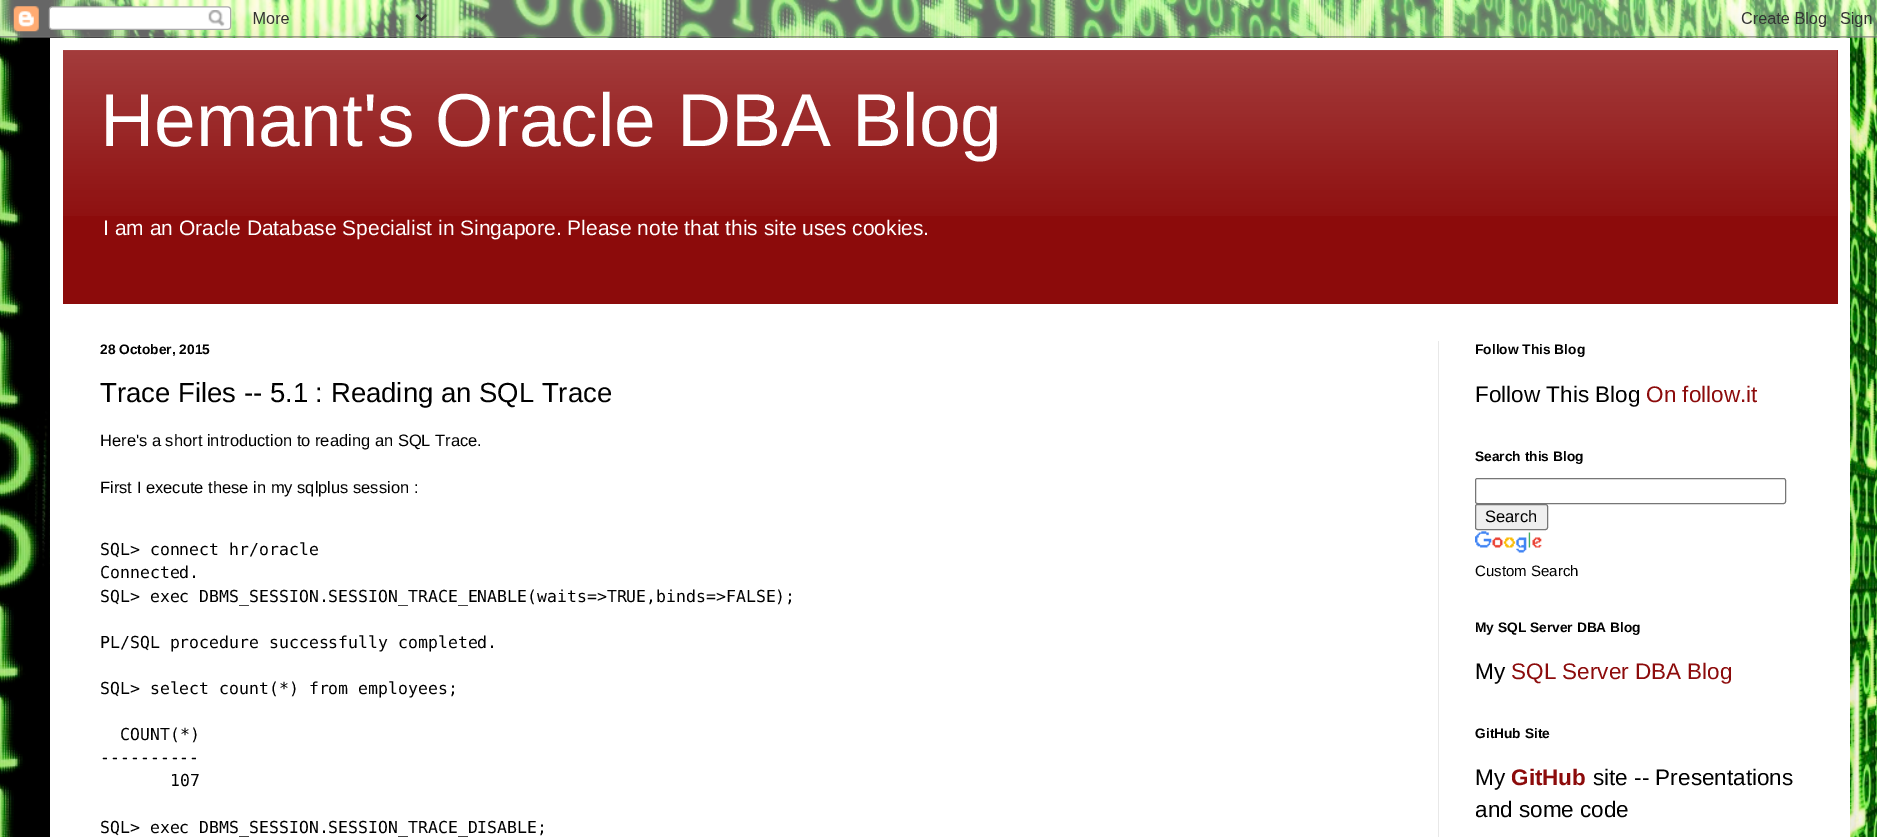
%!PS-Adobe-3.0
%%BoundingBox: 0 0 1877 837
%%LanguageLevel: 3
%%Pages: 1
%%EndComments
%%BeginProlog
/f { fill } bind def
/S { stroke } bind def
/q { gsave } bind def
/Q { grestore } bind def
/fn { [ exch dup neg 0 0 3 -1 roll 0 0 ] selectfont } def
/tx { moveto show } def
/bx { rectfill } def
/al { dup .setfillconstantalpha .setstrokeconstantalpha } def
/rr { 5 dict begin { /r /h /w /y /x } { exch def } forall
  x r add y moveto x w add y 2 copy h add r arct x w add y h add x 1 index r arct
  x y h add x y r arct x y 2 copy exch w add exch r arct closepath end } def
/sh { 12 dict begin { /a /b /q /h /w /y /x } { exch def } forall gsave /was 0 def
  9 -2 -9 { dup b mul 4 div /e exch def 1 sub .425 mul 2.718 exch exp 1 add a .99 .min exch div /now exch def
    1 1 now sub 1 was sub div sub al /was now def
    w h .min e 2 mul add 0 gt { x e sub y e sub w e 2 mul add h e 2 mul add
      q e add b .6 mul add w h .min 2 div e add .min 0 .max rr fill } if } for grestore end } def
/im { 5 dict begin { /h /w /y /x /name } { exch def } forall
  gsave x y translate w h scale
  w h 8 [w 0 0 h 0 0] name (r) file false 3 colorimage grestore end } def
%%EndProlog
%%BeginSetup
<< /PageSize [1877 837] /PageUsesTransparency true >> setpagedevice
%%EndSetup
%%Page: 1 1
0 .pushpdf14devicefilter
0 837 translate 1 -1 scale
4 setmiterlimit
1 setgray
0 0 1877 837 bx
(image0.raw) 0 0 1877 837 im
0 setgray
50 38 1800 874 0 25 0.15 sh
(image1.raw) 0 0 1877 38 im
1 setgray
50 38 1800 799 bx
0.549 0.043 0.043 setrgbcolor
63 50 1775 254 bx
(image2.raw) 63 50 1775 166 im
/LiberationSans-Regular 75 fn
1 setgray
(Hemant's Oracle DBA Blog) 100 146 tx
/LiberationSans-Regular 21 fn
(I am an Oracle Database Specialist in Singapore. Please note that this site uses cookies.) 103 235 tx
0.91 setgray
1438 341 1 496 bx
/LiberationSans-Bold 13.75 fn
0 setgray
(28 October, 2015) 100 354 tx
/LiberationSans-Regular 27.5 fn
(Trace Files -- 5.1 : Reading an SQL Trace) 100 402 tx
/LiberationSans-Regular 16.5 fn
(Here's a short introduction to reading an SQL Trace.) 100 446 tx
(First I execute these in my sqlplus session :) 100 493 tx
/DejaVuSansMono-Regular 16.5 fn
(SQL> connect hr/oracle) 100 555 tx
(Connected.) 100 578 tx
(SQL> exec DBMS_SESSION.SESSION_TRACE_ENABLE\(waits=>TRUE,binds=>FALSE\);) 100 602 tx
(PL/SQL procedure successfully completed.) 100 648 tx
(SQL> select count\(*\) from employees;) 100 694 tx
(COUNT\(*\)) 120 740 tx
(----------) 100 763 tx
(107) 170 786 tx
(SQL> exec DBMS_SESSION.SESSION_TRACE_DISABLE;) 100 833 tx
/LiberationSans-Bold 13.75 fn
(Follow This Blog) 1475 354 tx
/LiberationSans-Regular 22.5 fn
(Follow This Blog) 1475 402 tx
0.549 0.043 0.043 setrgbcolor
(On follow.it) 1646 402 tx
/LiberationSans-Bold 13.75 fn
0 setgray
(Search this Blog) 1475 461 tx
0.463 setgray
1475.5 478.5 310 25 2 rr S
0.937 setgray
1475.5 504.5 72 25 2 rr q f Q
0.463 setgray
S
/LiberationSans-Regular 16.5 fn
0 setgray
(Search) 1485 522 tx
(image3.raw) 1475 531 67 22 im
/LiberationSans-Regular 15 fn
(Custom Search) 1475 576 tx
/LiberationSans-Bold 13.75 fn
(My SQL Server DBA Blog) 1475 632 tx
/LiberationSans-Regular 22.5 fn
(My) 1475 679 tx
0.549 0.043 0.043 setrgbcolor
(SQL Server DBA Blog) 1511 679 tx
/LiberationSans-Bold 13.75 fn
0 setgray
(GitHub Site) 1475 738 tx
/LiberationSans-Regular 22.5 fn
(My) 1475 785 tx
/LiberationSans-Bold 22.5 fn
0.549 0.043 0.043 setrgbcolor
(GitHub) 1511 785 tx
/LiberationSans-Regular 22.5 fn
0 setgray
(site -- Presentations) 1593 785 tx
(and some code) 1475 817 tx
.poppdf14devicefilter showpage
%%EOF
